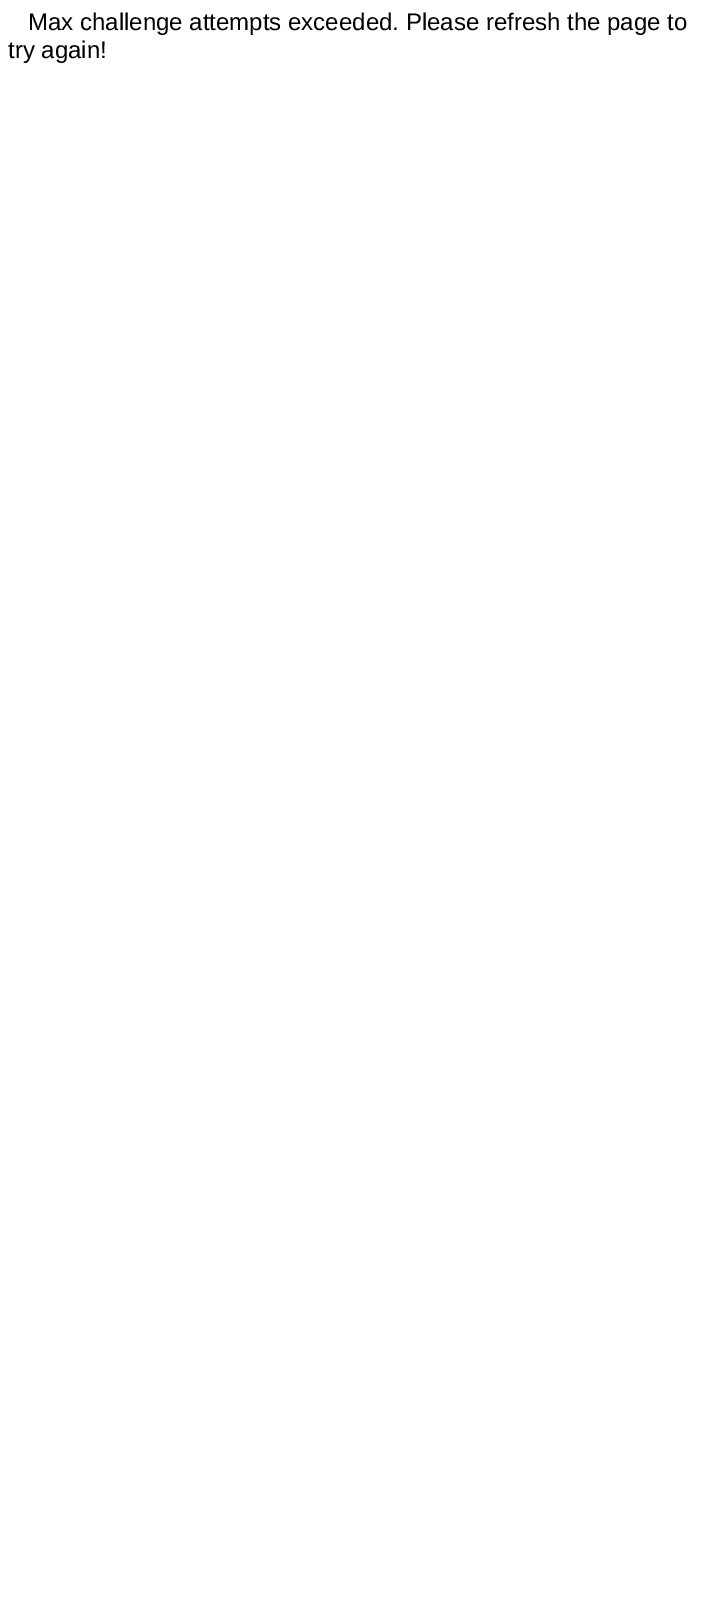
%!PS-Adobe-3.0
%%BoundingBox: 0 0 726 1608
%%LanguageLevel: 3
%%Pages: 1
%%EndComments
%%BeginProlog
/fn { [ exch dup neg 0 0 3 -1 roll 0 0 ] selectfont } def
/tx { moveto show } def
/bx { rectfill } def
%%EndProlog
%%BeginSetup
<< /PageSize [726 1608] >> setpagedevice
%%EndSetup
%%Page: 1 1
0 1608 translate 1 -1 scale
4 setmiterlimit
1 setgray
0 0 726 1608 bx
/LiberationSans-Regular 24 fn
0 setgray
(Max challenge attempts exceeded. Please refresh the page to) 28 30 tx
(try again!) 8 58 tx
showpage
%%EOF
